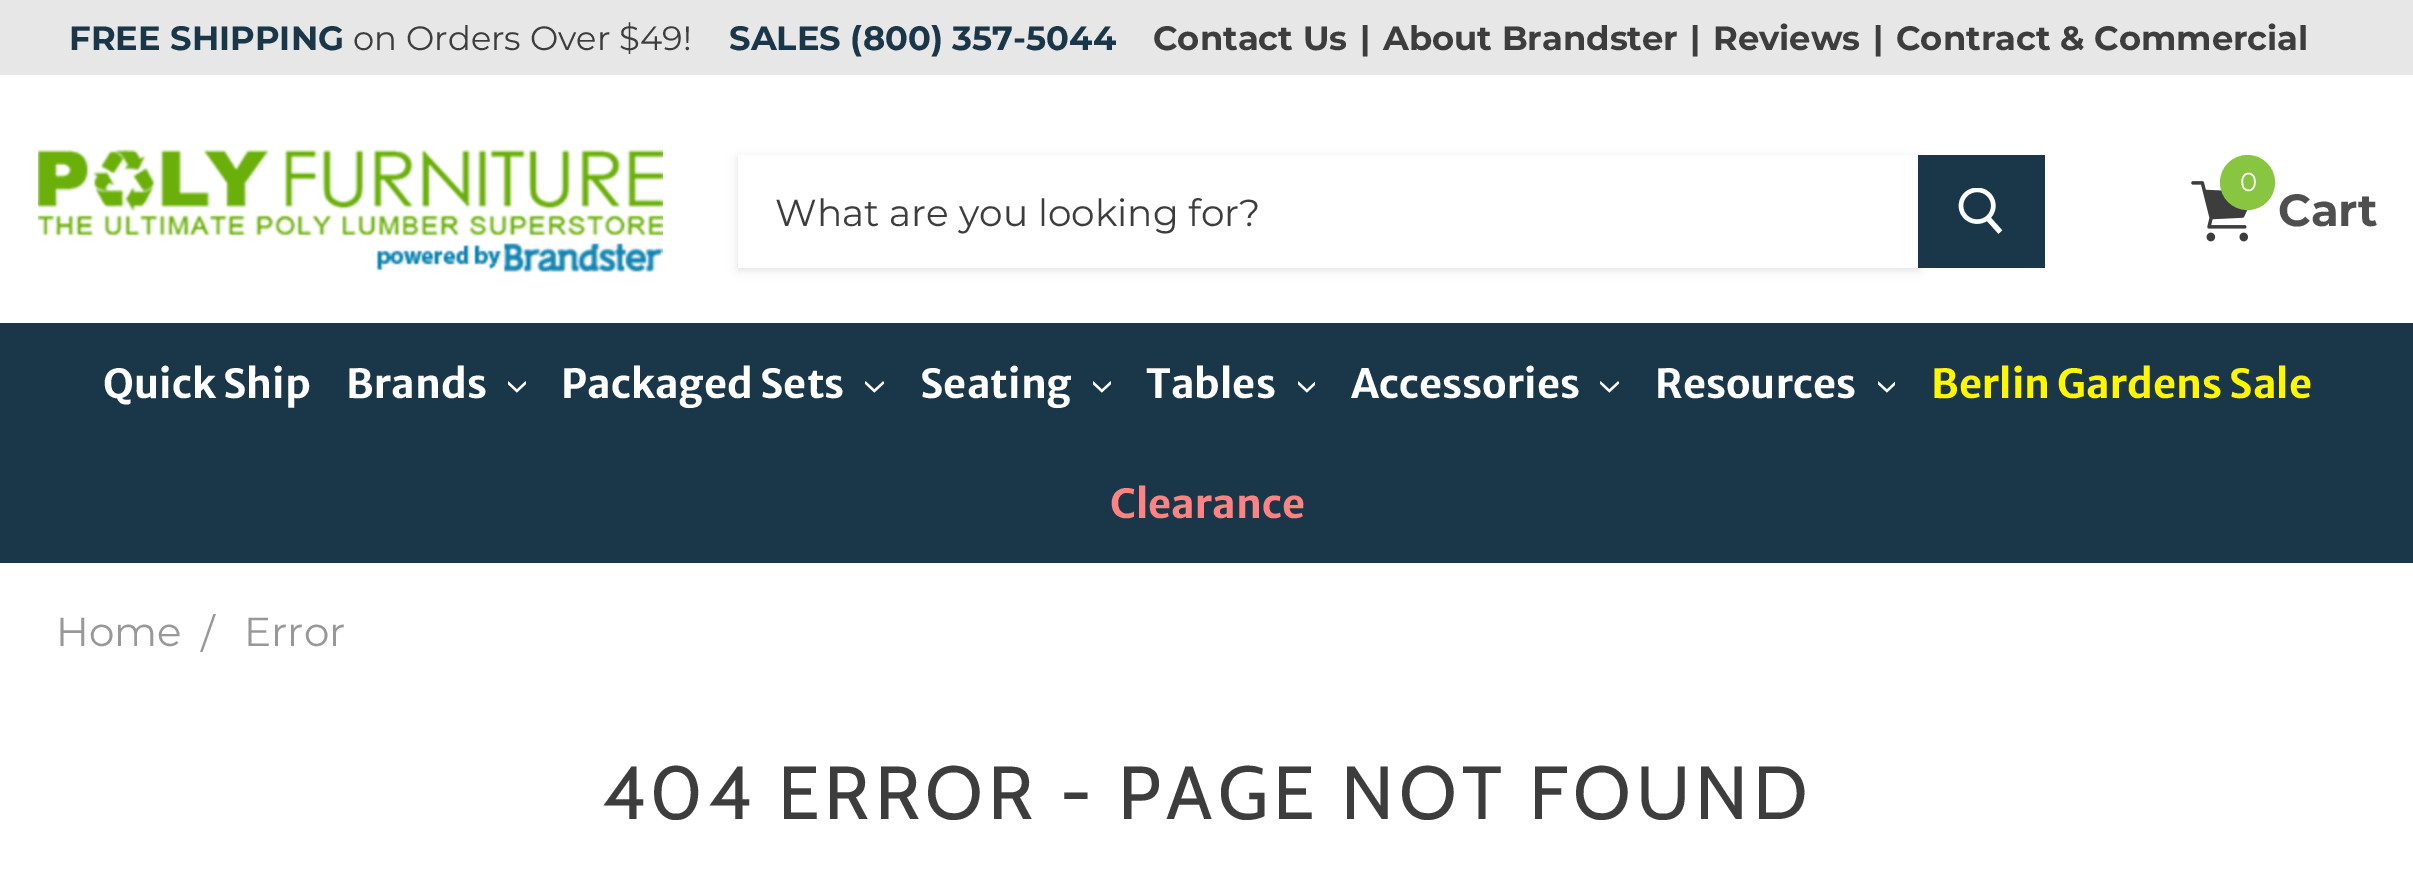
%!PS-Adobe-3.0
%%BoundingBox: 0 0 2413 880
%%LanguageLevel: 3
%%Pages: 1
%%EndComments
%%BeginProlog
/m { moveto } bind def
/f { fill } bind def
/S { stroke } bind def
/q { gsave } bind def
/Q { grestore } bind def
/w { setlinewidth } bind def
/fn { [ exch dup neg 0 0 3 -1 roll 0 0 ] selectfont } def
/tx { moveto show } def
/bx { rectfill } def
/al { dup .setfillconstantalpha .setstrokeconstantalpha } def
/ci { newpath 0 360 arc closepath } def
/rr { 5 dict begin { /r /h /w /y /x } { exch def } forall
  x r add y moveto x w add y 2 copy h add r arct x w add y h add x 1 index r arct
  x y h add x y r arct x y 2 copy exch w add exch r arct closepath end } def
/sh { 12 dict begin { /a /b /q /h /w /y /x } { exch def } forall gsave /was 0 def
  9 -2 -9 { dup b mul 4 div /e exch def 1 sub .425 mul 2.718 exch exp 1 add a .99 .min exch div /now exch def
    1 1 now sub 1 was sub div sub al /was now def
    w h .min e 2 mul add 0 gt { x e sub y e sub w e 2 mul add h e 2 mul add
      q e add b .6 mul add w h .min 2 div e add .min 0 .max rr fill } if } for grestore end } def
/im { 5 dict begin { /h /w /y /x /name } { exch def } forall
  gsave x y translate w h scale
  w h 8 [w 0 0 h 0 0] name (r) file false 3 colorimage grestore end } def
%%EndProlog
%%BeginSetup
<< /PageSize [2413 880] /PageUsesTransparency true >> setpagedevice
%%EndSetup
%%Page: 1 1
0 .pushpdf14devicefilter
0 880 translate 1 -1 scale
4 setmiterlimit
1 setgray
0 0 2413 880 bx
0.906 setgray
0 0 2413 75 bx
/Montserrat-Bold 33.75 fn
0.102 0.216 0.29 setrgbcolor
(FREE SHIPPING) 69 50 tx
/Montserrat-Regular 33.75 fn
0.239 setgray
(on Orders Over $49!) 353 50 tx
/Montserrat-Bold 33.75 fn
0.102 0.216 0.29 setrgbcolor
(SALES \(800\) 357-5044) 729 50 tx
0.239 setgray
(Contact Us) 1153 50 tx
(|) 1360 50 tx
(About Brandster) 1383 50 tx
(|) 1690 50 tx
(Reviews) 1713 50 tx
(|) 1873 50 tx
(Contract & Commercial) 1896 50 tx
(image0.raw) 38 149 625 124 im
0.498 setgray
738 158 1182 112 0 5 0.25 sh
1 setgray
738 155 1180 113 bx
/Montserrat-Regular 37.5 fn
0.239 setgray
(What are you looking for?) 775 226 tx
0.102 0.216 0.29 setrgbcolor
1918 155 127 113 bx
(image1.raw) 1958 188 45 46 im
(image2.raw) 2191 181 60 61 im
0.533 0.773 0.255 setrgbcolor
2247.5 182.5 25 ci q f Q
5 w
S
/Montserrat-Regular 26 fn
1 setgray
(0) 2240 191 tx
/Montserrat-Bold 45 fn
0.31 setgray
(Cart) 2278 226 tx
0.102 0.216 0.29 setrgbcolor
0 323 2413 240 bx
/MerriweatherSans-Bold 40 fn
1 setgray
(Quick Ship) 103 398 tx
(Brands) 346 398 tx
(image3.raw) 508 381 18 12 im
(Packaged Sets) 561 398 tx
(image4.raw) 865 381 19 12 im
(Seating) 920 398 tx
(image3.raw) 1093 381 18 12 im
(Tables) 1146 398 tx
(image5.raw) 1298 381 17 12 im
(Accessories) 1351 398 tx
(image4.raw) 1600 381 19 12 im
(Resources) 1655 398 tx
(image5.raw) 1878 381 17 12 im
1 0.965 0 setrgbcolor
(Berlin Gardens Sale) 1931 398 tx
1 0.514 0.514 setrgbcolor
(Clearance) 1110 518 tx
/Montserrat-Regular 40.5 fn
0.596 setgray
(Home) 56 646 tx
(/) 201 648 tx
(Error) 244 646 tx
/Cabin-Regular 75 fn
0.239 setgray
602 819 m 5 0 (404 ERROR - PAGE NOT FOUND) ashow
.poppdf14devicefilter showpage
%%EOF
